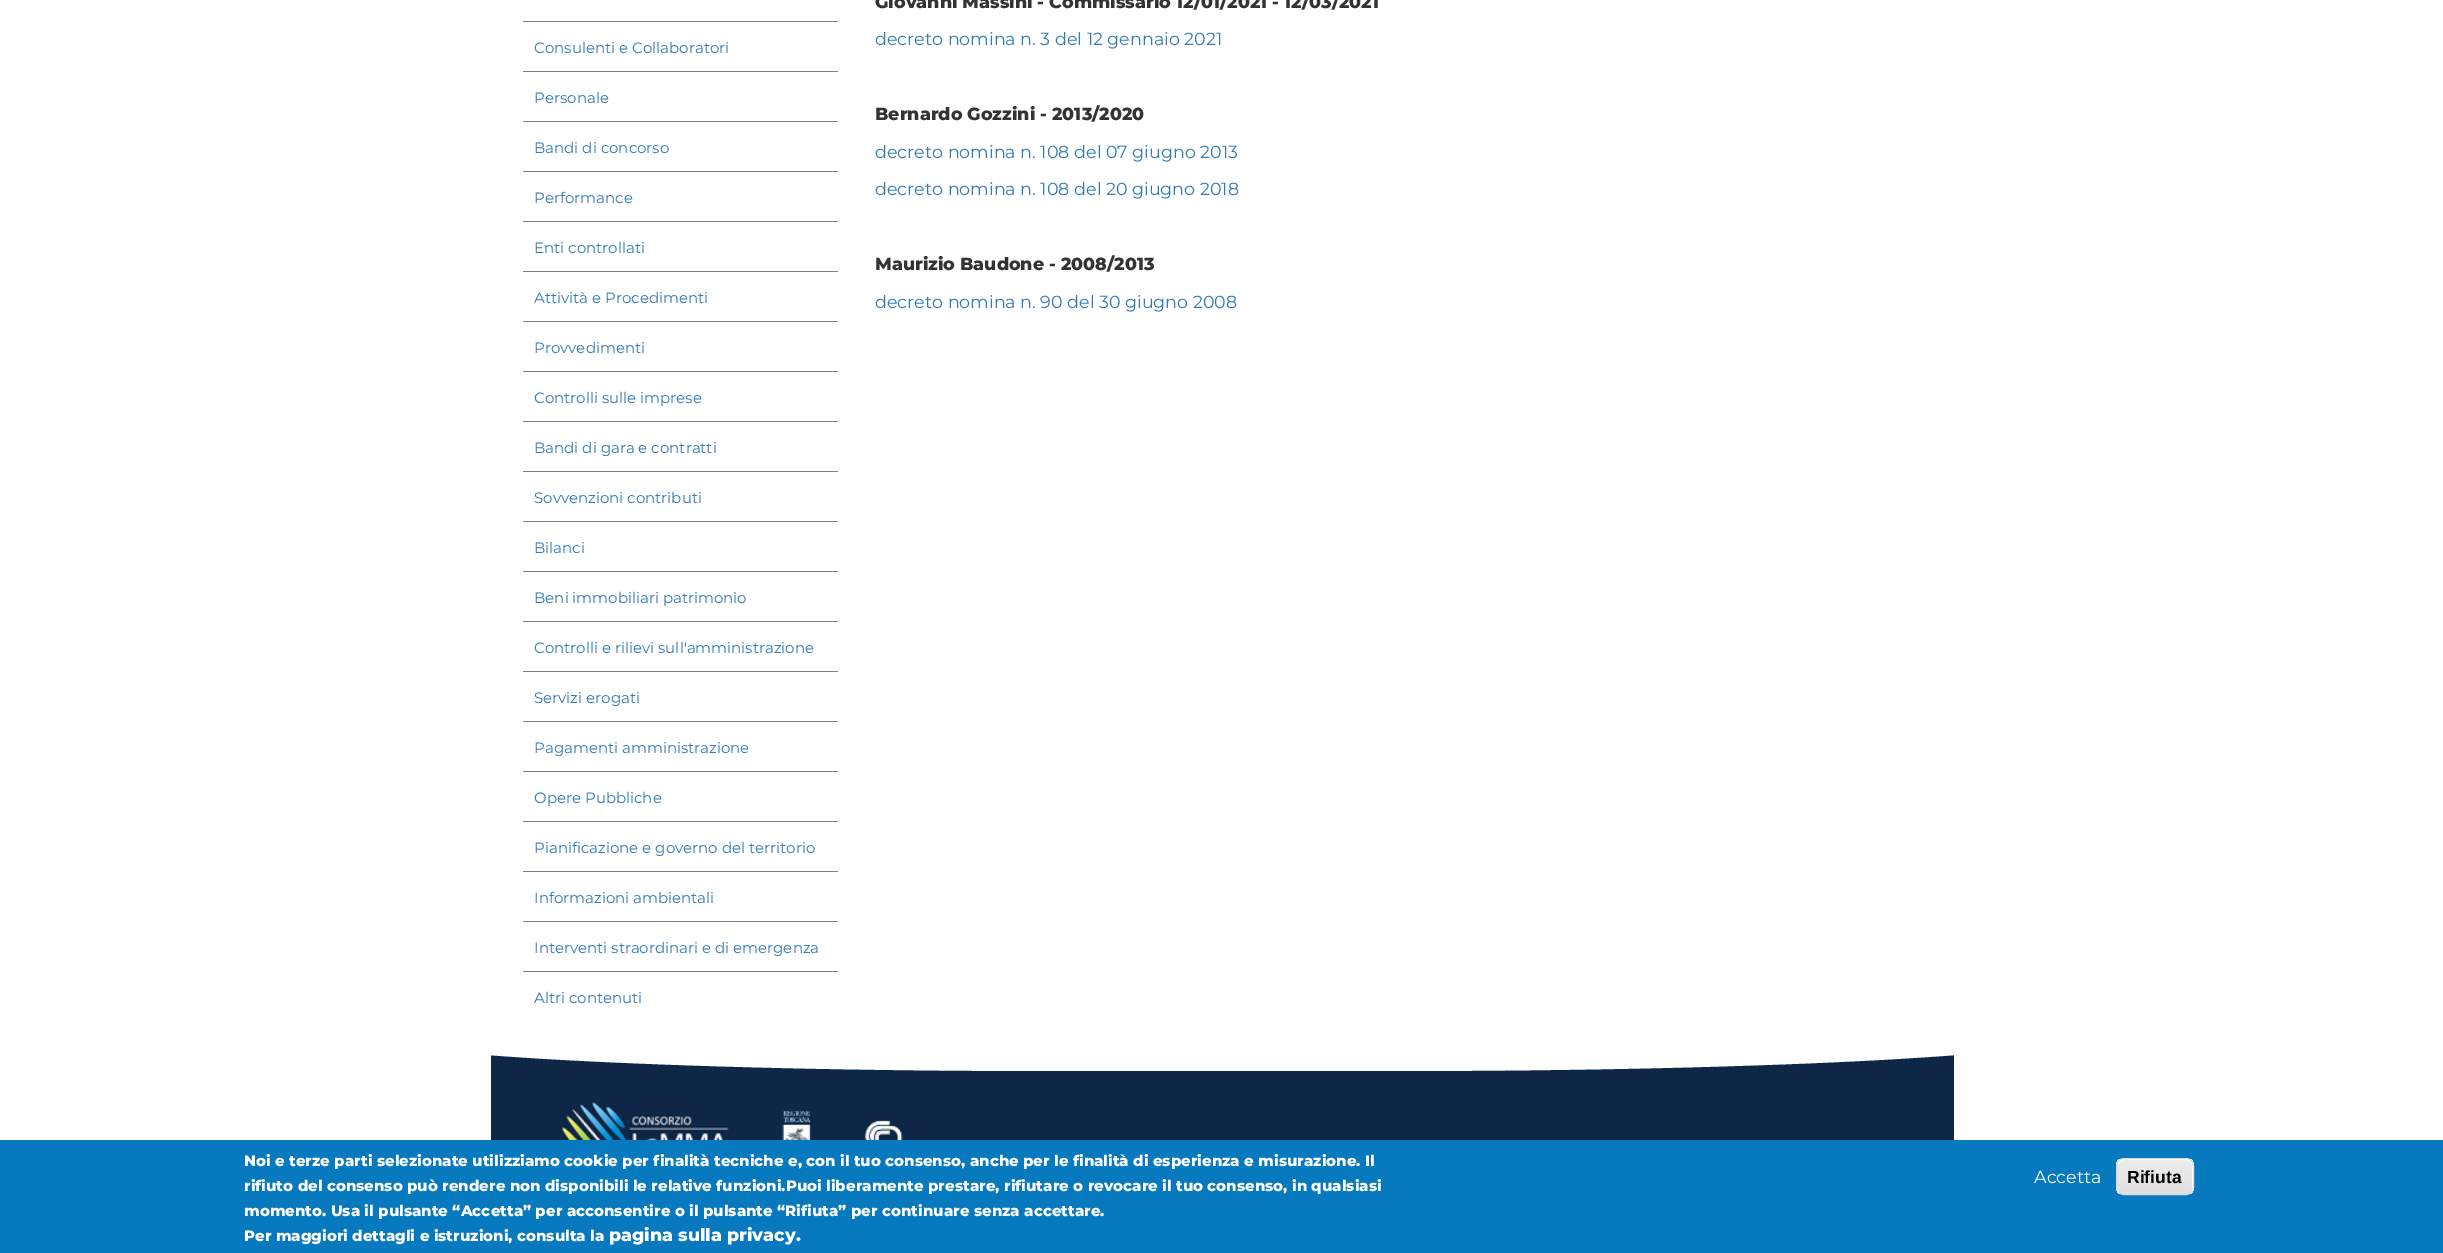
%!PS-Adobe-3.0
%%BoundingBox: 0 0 2443 1253
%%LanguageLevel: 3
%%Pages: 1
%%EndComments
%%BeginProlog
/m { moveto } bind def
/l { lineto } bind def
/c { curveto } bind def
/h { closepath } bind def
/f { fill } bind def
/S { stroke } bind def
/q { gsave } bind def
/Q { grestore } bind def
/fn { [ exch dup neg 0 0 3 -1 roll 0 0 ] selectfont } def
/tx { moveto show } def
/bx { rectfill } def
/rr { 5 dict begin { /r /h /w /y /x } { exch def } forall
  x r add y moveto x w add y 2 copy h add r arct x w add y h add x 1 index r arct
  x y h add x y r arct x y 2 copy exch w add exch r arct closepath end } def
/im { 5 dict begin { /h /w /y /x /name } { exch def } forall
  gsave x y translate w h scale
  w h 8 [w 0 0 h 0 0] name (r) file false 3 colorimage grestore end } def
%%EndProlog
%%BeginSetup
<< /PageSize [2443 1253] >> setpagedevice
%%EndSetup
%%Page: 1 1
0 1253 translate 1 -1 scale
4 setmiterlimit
1 setgray
0 0 2443 1253 bx
0.502 setgray
523 21 315 1 bx
/Montserrat-Regular 15 fn
0.2 0.478 0.718 setrgbcolor
(Consulenti e Collaboratori) 534 53 tx
0.502 setgray
523 71 315 1 bx
0.2 0.478 0.718 setrgbcolor
(Personale) 534 103 tx
0.502 setgray
523 121 315 1 bx
0.2 0.478 0.718 setrgbcolor
(Bandi di concorso) 534 153 tx
0.502 setgray
523 171 315 1 bx
0.2 0.478 0.718 setrgbcolor
(Performance) 534 203 tx
0.502 setgray
523 221 315 1 bx
0.2 0.478 0.718 setrgbcolor
(Enti controllati) 534 253 tx
0.502 setgray
523 271 315 1 bx
0.2 0.478 0.718 setrgbcolor
(Attività e Procedimenti) 534 303 tx
0.502 setgray
523 321 315 1 bx
0.2 0.478 0.718 setrgbcolor
(Provvedimenti) 534 353 tx
0.502 setgray
523 371 315 1 bx
0.2 0.478 0.718 setrgbcolor
(Controlli sulle imprese) 534 403 tx
0.502 setgray
523 421 315 1 bx
0.2 0.478 0.718 setrgbcolor
(Bandi di gara e contratti) 534 453 tx
0.502 setgray
523 471 315 1 bx
0.2 0.478 0.718 setrgbcolor
(Sovvenzioni contributi) 534 503 tx
0.502 setgray
523 521 315 1 bx
0.2 0.478 0.718 setrgbcolor
(Bilanci) 534 553 tx
0.502 setgray
523 571 315 1 bx
0.2 0.478 0.718 setrgbcolor
(Beni immobiliari patrimonio) 534 603 tx
0.502 setgray
523 621 315 1 bx
0.2 0.478 0.718 setrgbcolor
(Controlli e rilievi sull'amministrazione) 534 653 tx
0.502 setgray
523 671 315 1 bx
0.2 0.478 0.718 setrgbcolor
(Servizi erogati) 534 703 tx
0.502 setgray
523 721 315 1 bx
0.2 0.478 0.718 setrgbcolor
(Pagamenti amministrazione) 534 753 tx
0.502 setgray
523 771 315 1 bx
0.2 0.478 0.718 setrgbcolor
(Opere Pubbliche) 534 803 tx
0.502 setgray
523 821 315 1 bx
0.2 0.478 0.718 setrgbcolor
(Pianificazione e governo del territorio) 534 853 tx
0.502 setgray
523 871 315 1 bx
0.2 0.478 0.718 setrgbcolor
(Informazioni ambientali) 534 903 tx
0.502 setgray
523 921 315 1 bx
0.2 0.478 0.718 setrgbcolor
(Interventi straordinari e di emergenza) 534 953 tx
0.502 setgray
523 971 315 1 bx
0.2 0.478 0.718 setrgbcolor
(Altri contenuti) 534 1003 tx
/Montserrat-ExtraBold 17.5 fn
0.2 setgray
(Giovanni Massini - Commissario 12/01/2021 - 12/03/2021) 875 8 tx
/Montserrat-Regular 17.5 fn
0.2 0.478 0.718 setrgbcolor
(decreto nomina n. 3 del 12 gennaio 2021) 875 45 tx
/Montserrat-ExtraBold 17.5 fn
0.2 setgray
(Bernardo Gozzini - 2013/2020) 875 120 tx
/Montserrat-Regular 17.5 fn
0.2 0.478 0.718 setrgbcolor
(decreto nomina n. 108 del 07 giugno 2013) 875 158 tx
(decreto nomina n. 108 del 20 giugno 2018) 875 195 tx
/Montserrat-ExtraBold 17.5 fn
0.2 setgray
(Maurizio Baudone - 2008/2013) 875 270 tx
/Montserrat-Regular 17.5 fn
0.2 0.478 0.718 setrgbcolor
(decreto nomina n. 90 del 30 giugno 2008) 875 308 tx
0.055 0.153 0.275 setrgbcolor
491 1055 1463 85 bx
q
491 1034 1463 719 rectclip
1 setgray
364 1034 m 2080 1034 l 2080 1054 1773 1071 1394 1071 c 1050 1071 l 671 1071 364 1054 364 1034 c h f
Q
(image0.raw) 562 1101 168 39 im
(image1.raw) 779 1110 32 30 im
(image2.raw) 864 1120 39 20 im
0.027 0.475 0.749 setrgbcolor
0 1140 2443 113 bx
/Montserrat-ExtraBold 15 fn
1 setgray
(Noi e terze parti selezionate utilizziamo cookie per finalità tecniche e, con il tuo consenso, anche per le finalità di esperienza e misurazione. Il) 244 1166 tx
(rifiuto del consenso può rendere non disponibili le relative funzioni.Puoi liberamente prestare, rifiutare o revocare il tuo consenso, in qualsiasi) 244 1191 tx
(momento. Usa il pulsante “Accetta” per acconsentire o il pulsante “Rifiuta” per continuare senza accettare.) 244 1216 tx
(Per maggiori dettagli e istruzioni, consulta la) 244 1241 tx
/Montserrat-ExtraBold 17.5 fn
(pagina sulla privacy.) 609 1241 tx
/Montserrat-Regular 17.5 fn
(Accetta) 2034 1183 tx
q
2116 1158 78 37 8 rr clip newpath
q 2116 1159 m 2194 1159 l 2194 1194 l 2116 1194 l h clip newpath
<< /ShadingType 2 /ColorSpace /DeviceRGB /Coords [2155 1159 2155 1194] /Extend [true true] /Function << /FunctionType 3 /Domain [0 1] /Functions [<< /FunctionType 2 /Domain [0 1] /C0 [0.929 0.929 0.929] /C1 [0.929 0.929 0.929] /N 1 >> << /FunctionType 2 /Domain [0 1] /C0 [0.929 0.929 0.929] /C1 [0.875 0.875 0.875] /N 1 >>] /Bounds [0.05] /Encode [0 1 0 1] >> >> shfill Q
Q
2124 1160 m 2186 1160 l 2190 1160 2192 1163 2192 1166 c 2192 1189 l 2192 1190 2192 1191 2191 1192 c 2192 1191 2193 1190 2193 1188 c 2193 1165 l 2193 1162 2190 1159 2187 1159 c 2124 1159 l 2121 1159 2118 1162 2118 1165 c 2118 1166 l 2118 1163 2120 1160 2124 1160 c h f
0.863 setgray
2116.5 1158.5 77 36 7.5 rr S
/LiberationSans-Bold 17.5 fn
0 setgray
(Rifiuta) 2127 1183 tx
showpage
%%EOF
